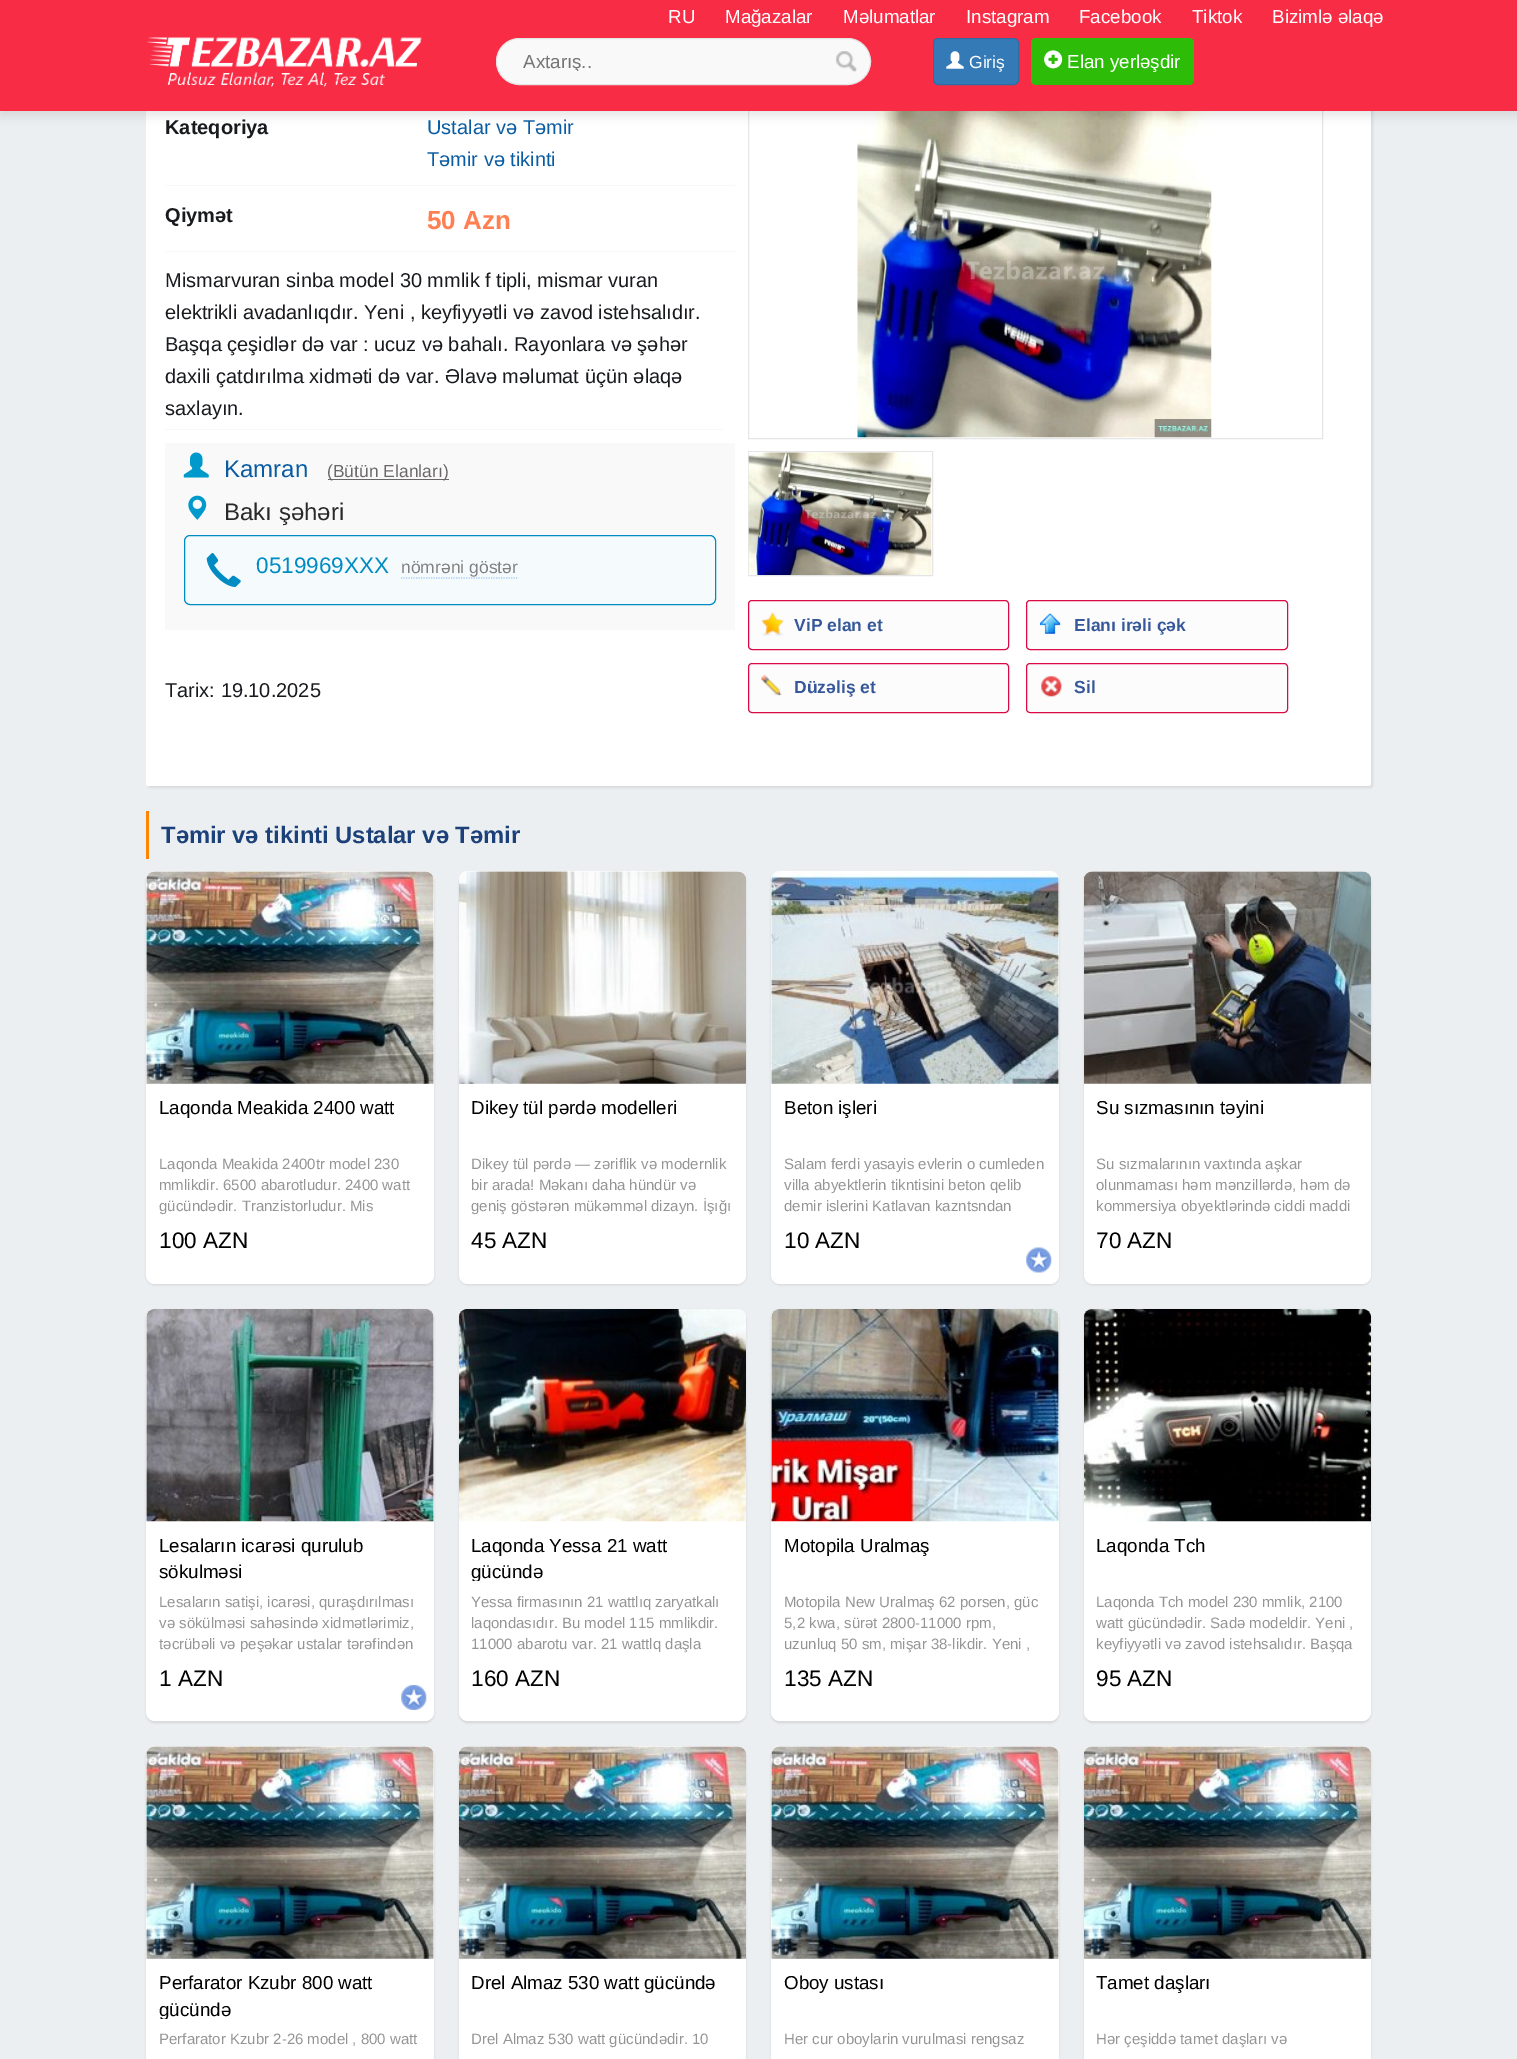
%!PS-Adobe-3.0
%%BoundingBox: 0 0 1517 2059
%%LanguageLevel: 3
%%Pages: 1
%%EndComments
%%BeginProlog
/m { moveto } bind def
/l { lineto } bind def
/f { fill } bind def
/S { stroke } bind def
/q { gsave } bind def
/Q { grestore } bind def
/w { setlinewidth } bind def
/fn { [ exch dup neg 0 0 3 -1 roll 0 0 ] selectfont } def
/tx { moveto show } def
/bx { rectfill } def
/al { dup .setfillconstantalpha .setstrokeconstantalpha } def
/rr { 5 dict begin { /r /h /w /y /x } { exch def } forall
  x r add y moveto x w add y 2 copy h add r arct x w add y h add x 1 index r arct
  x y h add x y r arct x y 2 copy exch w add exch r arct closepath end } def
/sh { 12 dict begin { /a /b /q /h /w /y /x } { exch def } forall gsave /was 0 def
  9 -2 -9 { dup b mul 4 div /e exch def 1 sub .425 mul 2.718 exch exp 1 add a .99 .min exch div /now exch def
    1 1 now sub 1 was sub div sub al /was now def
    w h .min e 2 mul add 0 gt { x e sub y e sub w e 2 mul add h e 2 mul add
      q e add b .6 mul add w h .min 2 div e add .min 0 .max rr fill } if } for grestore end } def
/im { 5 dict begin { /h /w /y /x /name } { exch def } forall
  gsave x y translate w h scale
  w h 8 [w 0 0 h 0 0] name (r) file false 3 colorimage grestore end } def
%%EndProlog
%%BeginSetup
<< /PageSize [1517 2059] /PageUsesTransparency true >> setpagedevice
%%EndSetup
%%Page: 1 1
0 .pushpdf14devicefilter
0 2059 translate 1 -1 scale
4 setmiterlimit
0.925 0.937 0.945 setrgbcolor
0 0 1517 2059 bx
0.196 setgray
148 8 1225 780 2.5 1 0.1 sh
1 setgray
146 6 1225 780 2.5 rr f
0.898 setgray
748.5 101.5 574 337 rectstroke
(image7.raw) 857 111 355 327 im
0 setgray
0 5 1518 111 0 5 0.1 sh
0.976 0.173 0.275 setrgbcolor
0 0 1517 111 bx
/LiberationSans-Regular 18.75 fn
1 setgray
(RU) 668 23 tx
(Mağazalar) 725 23 tx
(Məlumatlar) 843 23 tx
(Instagram) 966 23 tx
(Facebook) 1079 23 tx
(Tiktok) 1192 23 tx
(Bizimlə əlaqə) 1272 23 tx
(image0.raw) 147 37 275 50 im
0.976 setgray
496.5 38.5 374 46 23 rr q f Q
0.894 setgray
S
q
523 50 322 21 rectclip
0.459 setgray
(Axtarış..) 523 68 tx
Q
(image1.raw) 836 51 21 21 im
0.2 0.478 0.718 setrgbcolor
933.5 38.5 85 46 4.5 rr q f Q
0.18 0.427 0.643 setrgbcolor
S
(image2.raw) 946 51 18 18 im
/LiberationSans-Regular 17.5 fn
1 setgray
(Giriş) 969 68 tx
0.176 0.741 0.035 setrgbcolor
1031 38 163 47 5 rr f
(image3.raw) 1044 50 19 19 im
/LiberationSans-Regular 18.75 fn
1 setgray
(Elan yerləşdir) 1067 68 tx
0.969 0.973 0.969 setrgbcolor
165 185 570 1 bx
/LiberationSans-Bold 20 fn
0.094 0.102 0.118 setrgbcolor
(Kateqoriya) 165 134 tx
/LiberationSans-Regular 20 fn
0.035 0.361 0.635 setrgbcolor
(Ustalar və Təmir) 427 134 tx
(Təmir və tikinti) 427 166 tx
0.969 0.973 0.969 setrgbcolor
165 251 570 1 bx
/LiberationSans-Bold 20 fn
0.094 0.102 0.118 setrgbcolor
(Qiymət) 165 222 tx
/LiberationSans-Bold 26 fn
1 0.498 0.314 setrgbcolor
(50 Azn) 427 229 tx
0.969 0.973 0.969 setrgbcolor
165 429 558 1 bx
/LiberationSans-Regular 20 fn
0.094 0.102 0.118 setrgbcolor
(Mismarvuran sinba model 30 mmlik f tipli, mismar vuran) 165 287 tx
(elektrikli avadanlıqdır. Yeni , keyfiyyətli və zavod istehsalıdır.) 165 319 tx
(Başqa çeşidlər də var : ucuz və bahalı. Rayonlara və şəhər) 165 351 tx
(daxili çatdırılma xidməti də var. Əlavə məlumat üçün əlaqə) 165 383 tx
(saxlayın.) 165 415 tx
0.976 setgray
165 443 570 187 bx
(image4.raw) 183 452 26 26 im
/LiberationSans-Regular 24 fn
0.035 0.361 0.635 setrgbcolor
(Kamran) 224 477 tx
0.416 0.404 0.404 setrgbcolor
328 479 121 1 bx
/LiberationSans-Regular 17.5 fn
(\(Bütün Elanları\)) 327 477 tx
(image5.raw) 188 495 19 25 im
/LiberationSans-Regular 24 fn
0.165 setgray
(Bakı şəhəri) 224 520 tx
0.961 0.98 0.992 setrgbcolor
184.5 535.5 531 69 5.5 rr q f Q
0 0.549 0.765 setrgbcolor
S
(image6.raw) 206 553 35 34 im
/LiberationSans-Regular 22.5 fn
(0519969XXX) 256 573 tx
/LiberationSans-Regular 17.5 fn
0.502 setgray
(nömrəni göstər) 401 573 tx
0.675 0.792 0.933 setrgbcolor
1.2 w
[1.25 1.25] 0 setdash
401 578 m 517.5 578 l S
/LiberationSans-Regular 20 fn
0.094 0.102 0.118 setrgbcolor
(Tarix: 19.10.2025) 165 697 tx
0.898 setgray
1 w
[] 0 setdash
748.5 451.5 184 124 rectstroke
(image8.raw) 748 452 184 123 im
0.988 setgray
748.5 600.5 260 49 3.5 rr q f Q
0.855 0.039 0.271 setrgbcolor
S
(image9.raw) 761 612 23 24 im
/LiberationSans-Bold 17.5 fn
0.212 0.345 0.6 setrgbcolor
(ViP elan et) 794 631 tx
0.988 setgray
1026.5 600.5 261 49 3.5 rr q f Q
0.855 0.039 0.271 setrgbcolor
S
(image10.raw) 1040 613 21 21 im
0.212 0.345 0.6 setrgbcolor
(Elanı irəli çək) 1074 631 tx
0.988 setgray
748.5 663.5 260 49 3.5 rr q f Q
0.855 0.039 0.271 setrgbcolor
S
(image11.raw) 761 674 21 22 im
0.212 0.345 0.6 setrgbcolor
(Düzəliş et) 794 693 tx
0.988 setgray
1026.5 663.5 261 49 3.5 rr q f Q
0.855 0.039 0.271 setrgbcolor
S
(image12.raw) 1041 676 21 21 im
0.212 0.345 0.6 setrgbcolor
(Sil) 1074 693 tx
1 0.522 0 setrgbcolor
146 811 3 48 bx
/LiberationSans-Bold 23.75 fn
0.11 0.251 0.478 setrgbcolor
(Təmir və tikinti Ustalar və Təmir) 161 843 tx
0 setgray
146 873 288 412 9 1 0.1 sh
1 setgray
146 871 288 413 9 rr f
(image13.raw) 146 871 288 213 im
/LiberationSans-Regular 18.75 fn
0 setgray
(Laqonda Meakida 2400 watt) 159 1114 tx
/LiberationSans-Regular 15 fn
0.588 0.58 0.58 setrgbcolor
(Laqonda Meakida 2400tr model 230) 159 1169 tx
(mmlikdir. 6500 abarotludur. 2400 watt) 159 1190 tx
(gücündədir. Tranzistorludur. Mis) 159 1211 tx
/LiberationSans-Regular 22.5 fn
0 setgray
(100 AZN) 159 1248 tx
459 873 287 412 9 1 0.1 sh
1 setgray
459 871 287 413 9 rr f
(image14.raw) 459 871 287 213 im
/LiberationSans-Regular 18.75 fn
0 setgray
(Dikey tül pərdə modelleri) 471 1114 tx
/LiberationSans-Regular 15 fn
0.588 0.58 0.58 setrgbcolor
(Dikey tül pərdə — zəriflik və modernlik) 471 1169 tx
(bir arada! Məkanı daha hündür və) 471 1190 tx
(geniş göstərən mükəmməl dizayn. İşığı) 471 1211 tx
/LiberationSans-Regular 22.5 fn
0 setgray
(45 AZN) 471 1248 tx
771 873 288 412 9 1 0.1 sh
1 setgray
771 871 288 413 9 rr f
(image15.raw) 1026 1247 26 26 im
(image16.raw) 771 871 288 213 im
/LiberationSans-Regular 18.75 fn
0 setgray
(Beton işleri) 784 1114 tx
/LiberationSans-Regular 15 fn
0.588 0.58 0.58 setrgbcolor
(Salam ferdi yasayis evlerin o cumleden) 784 1169 tx
(villa abyektlerin tikntisini beton qelib) 784 1190 tx
(demir islerini Katlavan kazntsndan) 784 1211 tx
/LiberationSans-Regular 22.5 fn
0 setgray
(10 AZN) 784 1248 tx
1084 873 287 412 9 1 0.1 sh
1 setgray
1084 871 287 413 9 rr f
(image17.raw) 1084 871 287 213 im
/LiberationSans-Regular 18.75 fn
0 setgray
(Su sızmasının təyini) 1096 1114 tx
/LiberationSans-Regular 15 fn
0.588 0.58 0.58 setrgbcolor
(Su sızmalarının vaxtında aşkar) 1096 1169 tx
(olunmaması həm mənzillərdə, həm də) 1096 1190 tx
(kommersiya obyektlərində ciddi maddi) 1096 1211 tx
/LiberationSans-Regular 22.5 fn
0 setgray
(70 AZN) 1096 1248 tx
146 1310 288 413 9 1 0.1 sh
1 setgray
146 1309 288 412 9 rr f
(image18.raw) 401 1685 26 25 im
(image19.raw) 146 1309 288 213 im
/LiberationSans-Regular 18.75 fn
0 setgray
(Lesaların icarəsi qurulub) 159 1552 tx
(sökulməsi) 159 1578 tx
/LiberationSans-Regular 15 fn
0.588 0.58 0.58 setrgbcolor
(Lesaların satişi, icarəsi, quraşdırılması) 159 1607 tx
(və sökülməsi sahəsində xidmətlərimiz,) 159 1628 tx
(təcrübəli və peşəkar ustalar tərəfindən) 159 1649 tx
/LiberationSans-Regular 22.5 fn
0 setgray
(1 AZN) 159 1686 tx
459 1310 287 413 9 1 0.1 sh
1 setgray
459 1309 287 412 9 rr f
(image20.raw) 459 1309 287 213 im
/LiberationSans-Regular 18.75 fn
0 setgray
(Laqonda Yessa 21 watt) 471 1552 tx
q
459 1531 287 50 rectclip
(gücündə) 471 1578 tx
Q
/LiberationSans-Regular 15 fn
0.588 0.58 0.58 setrgbcolor
(Yessa firmasının 21 wattlıq zaryatkalı) 471 1607 tx
(laqondasıdır. Bu model 115 mmlikdir.) 471 1628 tx
(11000 abarotu var. 21 wattlq daşla) 471 1649 tx
/LiberationSans-Regular 22.5 fn
0 setgray
(160 AZN) 471 1686 tx
771 1310 288 413 9 1 0.1 sh
1 setgray
771 1309 288 412 9 rr f
(image21.raw) 771 1309 288 213 im
/LiberationSans-Regular 18.75 fn
0 setgray
(Motopila Uralmaş) 784 1552 tx
/LiberationSans-Regular 15 fn
0.588 0.58 0.58 setrgbcolor
(Motopila New Uralmaş 62 porsen, güc) 784 1607 tx
(5,2 kwa, sürət 2800-11000 rpm,) 784 1628 tx
(uzunluq 50 sm, mişar 38-likdir. Yeni ,) 784 1649 tx
/LiberationSans-Regular 22.5 fn
0 setgray
(135 AZN) 784 1686 tx
1084 1310 287 413 9 1 0.1 sh
1 setgray
1084 1309 287 412 9 rr f
(image22.raw) 1084 1309 287 213 im
/LiberationSans-Regular 18.75 fn
0 setgray
(Laqonda Tch) 1096 1552 tx
/LiberationSans-Regular 15 fn
0.588 0.58 0.58 setrgbcolor
(Laqonda Tch model 230 mmlik, 2100) 1096 1607 tx
(watt gücündədir. Sadə modeldir. Yeni ,) 1096 1628 tx
(keyfiyyətli və zavod istehsalıdır. Başqa) 1096 1649 tx
/LiberationSans-Regular 22.5 fn
0 setgray
(95 AZN) 1096 1686 tx
146 1748 288 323 9 1 0.1 sh
1 setgray
146 1746 288 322 9 rr f
(image13.raw) 146 1746 288 213 im
/LiberationSans-Regular 18.75 fn
0 setgray
(Perfarator Kzubr 800 watt) 159 1989 tx
q
146 1969 288 50 rectclip
(gücündə) 159 2016 tx
Q
/LiberationSans-Regular 15 fn
0.588 0.58 0.58 setrgbcolor
(Perfarator Kzubr 2-26 model , 800 watt) 159 2044 tx
0 setgray
459 1748 287 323 9 1 0.1 sh
1 setgray
459 1746 287 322 9 rr f
(image23.raw) 459 1746 287 213 im
/LiberationSans-Regular 18.75 fn
0 setgray
(Drel Almaz 530 watt gücündə) 471 1989 tx
/LiberationSans-Regular 15 fn
0.588 0.58 0.58 setrgbcolor
(Drel Almaz 530 watt gücündədir. 10) 471 2044 tx
0 setgray
771 1748 288 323 9 1 0.1 sh
1 setgray
771 1746 288 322 9 rr f
(image24.raw) 771 1746 288 213 im
/LiberationSans-Regular 18.75 fn
0 setgray
(Oboy ustası) 784 1989 tx
/LiberationSans-Regular 15 fn
0.588 0.58 0.58 setrgbcolor
(Her cur oboylarin vurulmasi rengsaz) 784 2044 tx
0 setgray
1084 1748 287 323 9 1 0.1 sh
1 setgray
1084 1746 287 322 9 rr f
(image25.raw) 1084 1746 287 213 im
/LiberationSans-Regular 18.75 fn
0 setgray
(Tamet daşları) 1096 1989 tx
/LiberationSans-Regular 15 fn
0.588 0.58 0.58 setrgbcolor
(Hər çeşiddə tamet daşları və) 1096 2044 tx
.poppdf14devicefilter showpage
%%EOF
